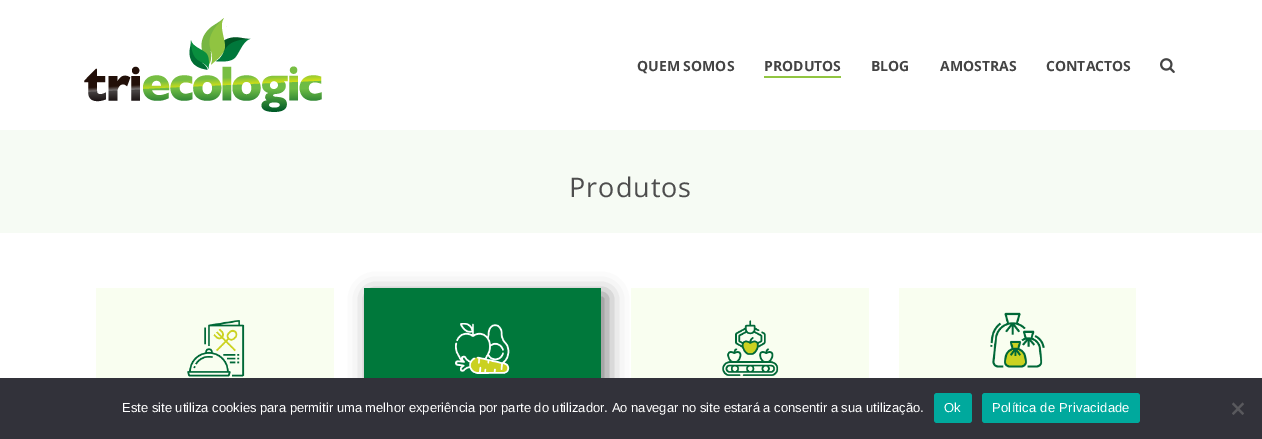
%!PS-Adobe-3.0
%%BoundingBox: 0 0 1262 439
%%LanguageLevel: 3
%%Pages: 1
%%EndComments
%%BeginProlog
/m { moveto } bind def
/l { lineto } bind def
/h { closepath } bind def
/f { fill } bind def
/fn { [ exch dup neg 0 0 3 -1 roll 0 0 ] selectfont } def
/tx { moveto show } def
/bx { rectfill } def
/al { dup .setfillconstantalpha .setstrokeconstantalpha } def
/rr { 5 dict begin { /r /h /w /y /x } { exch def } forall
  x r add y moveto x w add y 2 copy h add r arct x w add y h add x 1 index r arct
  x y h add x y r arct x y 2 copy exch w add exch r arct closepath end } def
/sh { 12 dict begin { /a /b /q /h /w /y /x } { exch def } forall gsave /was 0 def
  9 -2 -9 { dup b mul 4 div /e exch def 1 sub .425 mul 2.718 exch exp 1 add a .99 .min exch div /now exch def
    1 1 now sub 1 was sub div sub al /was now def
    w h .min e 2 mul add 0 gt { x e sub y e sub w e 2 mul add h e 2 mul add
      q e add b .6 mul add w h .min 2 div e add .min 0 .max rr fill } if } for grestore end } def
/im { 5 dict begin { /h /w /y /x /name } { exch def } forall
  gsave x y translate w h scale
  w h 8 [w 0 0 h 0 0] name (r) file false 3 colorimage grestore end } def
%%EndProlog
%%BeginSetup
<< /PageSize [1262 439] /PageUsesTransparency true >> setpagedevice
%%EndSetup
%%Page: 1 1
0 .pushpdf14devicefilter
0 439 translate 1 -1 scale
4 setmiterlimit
1 setgray
0 0 1262 439 bx
0.965 0.984 0.957 setrgbcolor
0 130 1262 103 bx
(image0.raw) 84 18 238 94 im
/OpenSans-Bold 14 fn
0.267 setgray
(QUEM SOMOS) 637 71 tx
(PRODUTOS) 764 71 tx
0.569 0.773 0.255 setrgbcolor
764 76 77 2 bx
0.267 setgray
(BLOG) 871 71 tx
(AMOSTRAS) 940 71 tx
(CONTACTOS) 1046 71 tx
(image1.raw) 1160 58 15 15 im
/OpenSans-Regular 27 fn
0.302 setgray
569 197 m 1 0 (Produtos) ashow
0.976 0.996 0.941 setrgbcolor
96 288 238 90 bx
(image2.raw) 187 320 58 57 im
0 setgray
370 294 237 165 0 10 0.5 sh
0 0.471 0.231 setrgbcolor
364 288 237 90 bx
(image3.raw) 455 323 55 51 im
0.976 0.996 0.941 setrgbcolor
631 288 238 90 bx
(image4.raw) 722 320 57 56 im
899 288 237 90 bx
(image5.raw) 990 312 55 56 im
0.196 0.196 0.227 setrgbcolor
0 378 1262 61 bx
/LiberationSans-Regular 13 fn
1 setgray
(Este site utiliza cookies para permitir uma melhor experiência por parte do utilizador. Ao navegar no site estará a consentir a sua utilização.) 122 412 tx
0 0.663 0.616 setrgbcolor
934 393 38 30 3 rr f
1 setgray
944 412 m 0.25 0 (Ok) ashow
0 0.663 0.616 setrgbcolor
982 393 158 30 3 rr f
1 setgray
992 412 m 0.25 0 (Política de Privacidade) ashow
0.349 0.349 0.365 setrgbcolor
1242.5 402.5 m 1244 404 l 1233.5 415 l 1232 413.5 l h f
1232 404 m 1233.5 402.5 l 1244 413.5 l 1242.5 415 l h f
.poppdf14devicefilter showpage
%%EOF
